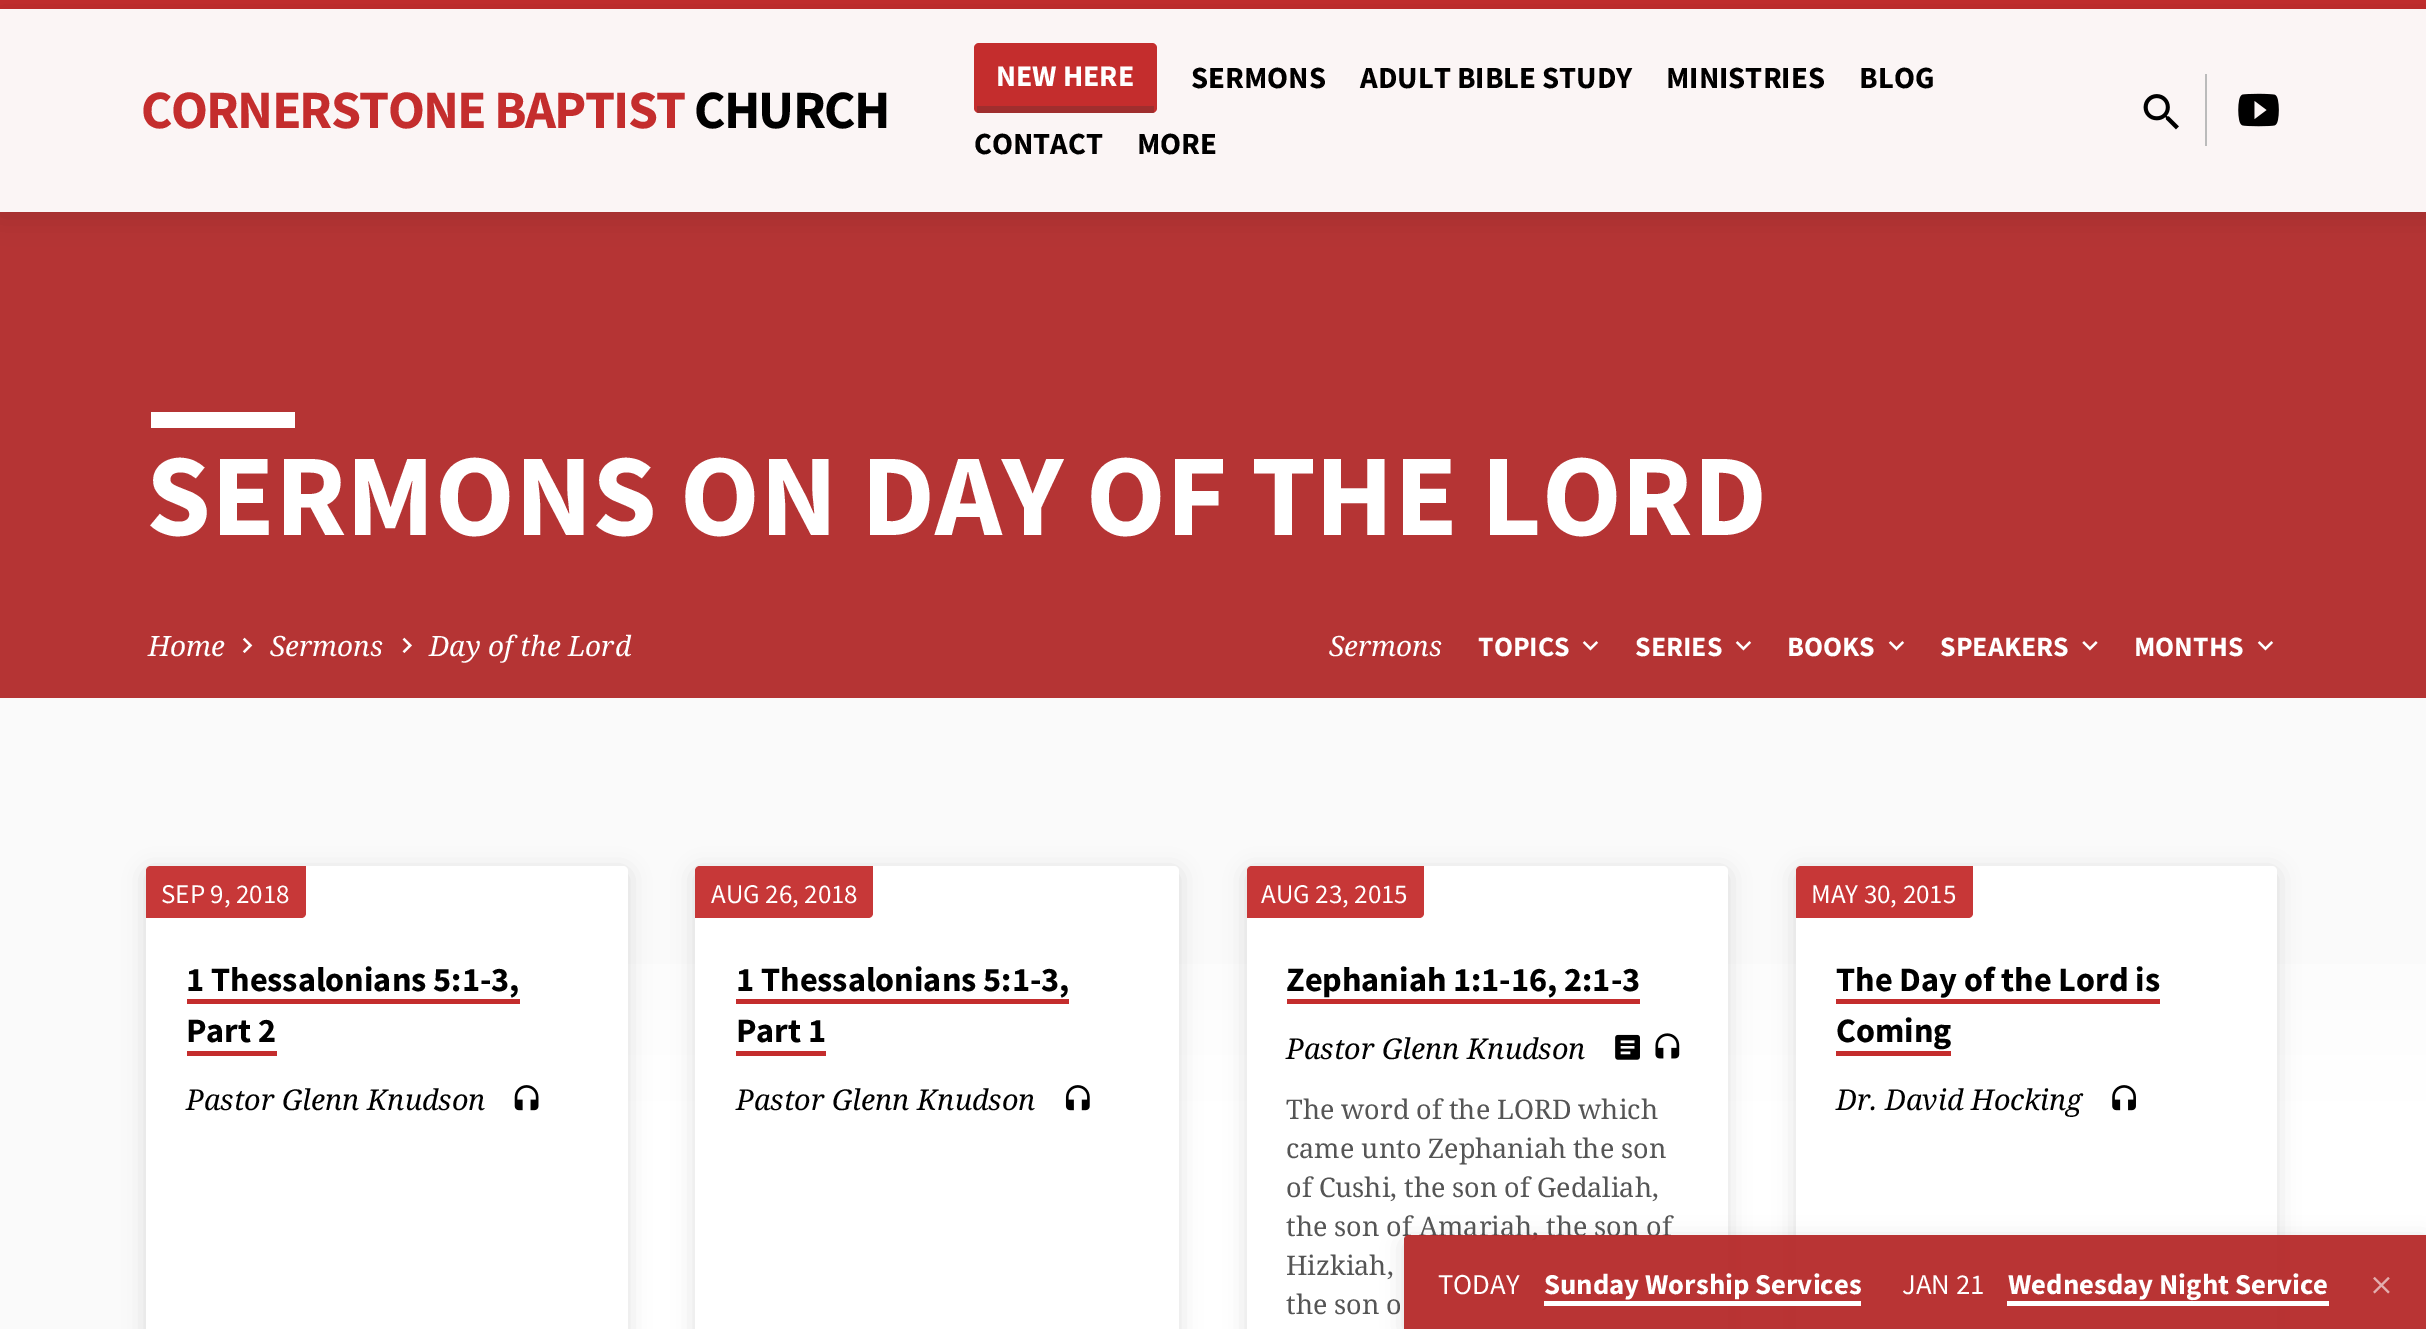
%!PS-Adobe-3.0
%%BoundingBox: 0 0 2426 1329
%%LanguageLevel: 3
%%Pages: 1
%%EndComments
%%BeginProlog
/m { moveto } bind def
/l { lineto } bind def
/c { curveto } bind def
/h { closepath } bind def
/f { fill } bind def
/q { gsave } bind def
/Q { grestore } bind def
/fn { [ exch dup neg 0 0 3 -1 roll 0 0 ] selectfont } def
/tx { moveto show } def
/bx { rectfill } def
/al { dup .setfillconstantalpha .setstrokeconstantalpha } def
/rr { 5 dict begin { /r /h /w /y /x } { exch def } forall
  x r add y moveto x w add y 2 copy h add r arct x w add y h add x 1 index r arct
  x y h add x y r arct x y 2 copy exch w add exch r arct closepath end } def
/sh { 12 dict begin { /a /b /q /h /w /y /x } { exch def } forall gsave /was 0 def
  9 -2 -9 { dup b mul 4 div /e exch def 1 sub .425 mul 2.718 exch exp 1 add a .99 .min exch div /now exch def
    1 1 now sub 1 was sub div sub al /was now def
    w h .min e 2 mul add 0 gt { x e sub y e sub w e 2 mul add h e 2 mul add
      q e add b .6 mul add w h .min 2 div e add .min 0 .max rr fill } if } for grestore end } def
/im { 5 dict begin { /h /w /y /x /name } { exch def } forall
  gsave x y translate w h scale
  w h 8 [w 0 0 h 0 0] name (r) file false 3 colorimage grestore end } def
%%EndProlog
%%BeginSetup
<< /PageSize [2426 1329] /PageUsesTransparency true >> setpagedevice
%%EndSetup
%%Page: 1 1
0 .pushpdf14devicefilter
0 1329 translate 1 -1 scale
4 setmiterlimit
0.98 setgray
0 0 2426 1329 bx
0.765 0.176 0.176 setrgbcolor
0 0 2426 9 bx
0.984 0.961 0.961 setrgbcolor
0 9 2426 203 bx
0.71 0.204 0.204 setrgbcolor
0 212 2426 486 bx
q
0 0 m 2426 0 l 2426 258 l 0 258 l h 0 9 m 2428 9 l 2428 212 l 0 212 l h eoclip newpath
0 setgray
0 14 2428 202 0 13.5 0.14 sh
Q
/SourceSansPro-Bold 54 fn
0.769 0.176 0.176 setrgbcolor
141 128 m -1.7 0 (CORNERSTONE BAPTIST) ashow
0 setgray
694 128 m -1.7 0 (CHURCH) ashow
0.769 0.176 0.176 setrgbcolor
974 43 183 70 5 rr f
0.25 al
0.196 setgray
977 106 177 7 bx
/SourceSansPro-Bold 30 fn
1 al
1 setgray
(NEW HERE) 996 86 tx
/SourceSansPro-Bold 30.75 fn
0 setgray
(SERMONS) 1191 88 tx
(ADULT BIBLE STUDY) 1360 88 tx
(MINISTRIES) 1666 88 tx
(BLOG) 1859 88 tx
(CONTACT) 974 154 tx
(MORE) 1137 154 tx
(image0.raw) 2143 94 36 36 im
0.733 setgray
2205 74 2 72 bx
(image1.raw) 2238 93 41 34 im
1 setgray
151 412 144 16 bx
/SourceSansPro-Bold 116.6 fn
(SERMONS ON DAY OF THE LORD) 146 535 tx
/NotoSerif-Italic 28 fn
(Home) 148 656 tx
(image2.raw) 242 637 11 16 im
(Sermons) 270 656 tx
(image3.raw) 402 637 10 16 im
(Day of the Lord) 429 656 tx
(Sermons) 1329 656 tx
/SourceSansPro-Bold 28 fn
(TOPICS) 1478 656 tx
(image4.raw) 1582 641 17 10 im
(SERIES) 1635 656 tx
(image4.raw) 1735 641 17 10 im
(BOOKS) 1787 656 tx
(image4.raw) 1888 641 17 10 im
(SPEAKERS) 1940 656 tx
(image5.raw) 2082 641 16 10 im
(MONTHS) 2134 656 tx
(image4.raw) 2257 641 17 10 im
q 146 964 m 2426 964 l 2426 1329 l 146 1329 l h clip newpath
<< /ShadingType 2 /ColorSpace /DeviceRGB /Coords [1360 697 1360 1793] /Extend [true true] /Function << /FunctionType 3 /Domain [0 1] /Functions [<< /FunctionType 2 /Domain [0 1] /C0 [0.988 0.988 0.988] /C1 [0.988 0.988 0.988] /N 1 >> << /FunctionType 2 /Domain [0 1] /C0 [0.988 0.988 0.988] /C1 [1 1 1] /N 1 >> << /FunctionType 2 /Domain [0 1] /C0 [1 1 1] /C1 [1 1 1] /N 1 >>] /Bounds [0.21 0.41] /Encode [0 1 0 1 0 1] >> >> shfill Q
0 setgray
146 871 482 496 5 11 0.12 sh
1 setgray
146 866 482 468 5 rr f
0.95 al
0.769 0.176 0.176 setrgbcolor
151 866 m 306 866 l 306 913 l 306 916 304 918 301 918 c 146 918 l 146 871 l 146 868 148 866 151 866 c h f
/SourceSansPro-Regular 27 fn
1 al
1 setgray
(SEP 9, 2018) 161 903 tx
/SourceSansPro-Bold 34.25 fn
0 setgray
(1 Thessalonians 5:1-3,) 186 991 tx
0.769 0.176 0.176 setrgbcolor
187 999 333 5 bx
0 setgray
(Part 2) 186 1042 tx
0.769 0.176 0.176 setrgbcolor
187 1051 90 5 bx
/NotoSerif-Italic 28.75 fn
0 setgray
(Pastor Glenn Knudson) 186 1110 tx
(image6.raw) 514 1085 25 26 im
695 871 484 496 5 11 0.12 sh
1 setgray
695 866 484 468 5 rr f
0.95 al
0.769 0.176 0.176 setrgbcolor
700 866 m 873 866 l 873 913 l 873 916 871 918 868 918 c 695 918 l 695 871 l 695 868 697 866 700 866 c h f
/SourceSansPro-Regular 27 fn
1 al
1 setgray
(AUG 26, 2018) 711 903 tx
/SourceSansPro-Bold 34.25 fn
0 setgray
(1 Thessalonians 5:1-3,) 736 991 tx
0.769 0.176 0.176 setrgbcolor
736 999 333 5 bx
0 setgray
(Part 1) 736 1042 tx
0.769 0.176 0.176 setrgbcolor
736 1051 90 5 bx
/NotoSerif-Italic 28.75 fn
0 setgray
(Pastor Glenn Knudson) 736 1110 tx
(image7.raw) 1065 1085 25 26 im
1247 871 481 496 5 11 0.12 sh
1 setgray
1247 866 481 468 5 rr f
0.78 0.216 0.216 setrgbcolor
1252 866 m 1424 866 l 1424 913 l 1424 916 1422 918 1419 918 c 1247 918 l 1247 871 l 1247 868 1249 866 1252 866 c h f
/SourceSansPro-Regular 27 fn
1 setgray
(AUG 23, 2015) 1261 903 tx
/SourceSansPro-Bold 34.25 fn
0 setgray
(Zephaniah 1:1-16, 2:1-3) 1286 991 tx
0.769 0.176 0.176 setrgbcolor
1287 999 353 5 bx
/NotoSerif-Italic 28.75 fn
0 setgray
(Pastor Glenn Knudson) 1286 1059 tx
(image8.raw) 1615 1034 25 26 im
(image9.raw) 1655 1033 25 26 im
/NotoSerif-Regular 27 fn
0.333 setgray
(The word of the LORD which) 1286 1119 tx
(came unto Zephaniah the son) 1286 1158 tx
(of Cushi, the son of Gedaliah,) 1286 1197 tx
(the son of Amariah, the son of) 1286 1236 tx
(Hizkiah,) 1286 1275 tx
(the son o) 1286 1314 tx
0 setgray
1796 871 481 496 5 11 0.12 sh
1 setgray
1796 866 481 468 5 rr f
0.78 0.216 0.216 setrgbcolor
1801 866 m 1973 866 l 1973 913 l 1973 916 1971 918 1968 918 c 1796 918 l 1796 871 l 1796 868 1798 866 1801 866 c h f
/SourceSansPro-Regular 27 fn
1 setgray
(MAY 30, 2015) 1811 903 tx
/SourceSansPro-Bold 34.25 fn
0 setgray
(The Day of the Lord is) 1836 991 tx
0.769 0.176 0.176 setrgbcolor
1836 999 324 5 bx
0 setgray
(Coming) 1836 1042 tx
0.769 0.176 0.176 setrgbcolor
1836 1051 115 5 bx
/NotoSerif-Italic 28.75 fn
0 setgray
(Dr. David Hocking) 1836 1110 tx
(image10.raw) 2112 1085 24 26 im
q
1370 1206 m 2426 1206 l 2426 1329 l 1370 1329 l h 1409 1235 m 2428 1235 l 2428 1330 l 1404 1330 l 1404 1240 l 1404 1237 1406 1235 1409 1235 c h eoclip newpath
1404 1240 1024 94 5 11 0.12 sh
Q
0.95 al
0.769 0.176 0.176 setrgbcolor
1409 1235 m 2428 1235 l 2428 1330 l 1404 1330 l 1404 1240 l 1404 1237 1406 1235 1409 1235 c h f
0.07 al
0 setgray
1404 1235 1022 94 bx
/SourceSansPro-Regular 28.75 fn
1 al
1 setgray
(TODAY) 1438 1294 tx
/SourceSansPro-Bold 28.75 fn
(Sunday Worship Services) 1544 1294 tx
1544 1301 317 5 bx
/SourceSansPro-Regular 28.75 fn
(JAN 21) 1902 1294 tx
/SourceSansPro-Bold 28.75 fn
(Wednesday Night Service) 2008 1294 tx
2007 1301 322 5 bx
(image11.raw) 2373 1277 17 17 im
.poppdf14devicefilter showpage
%%EOF
